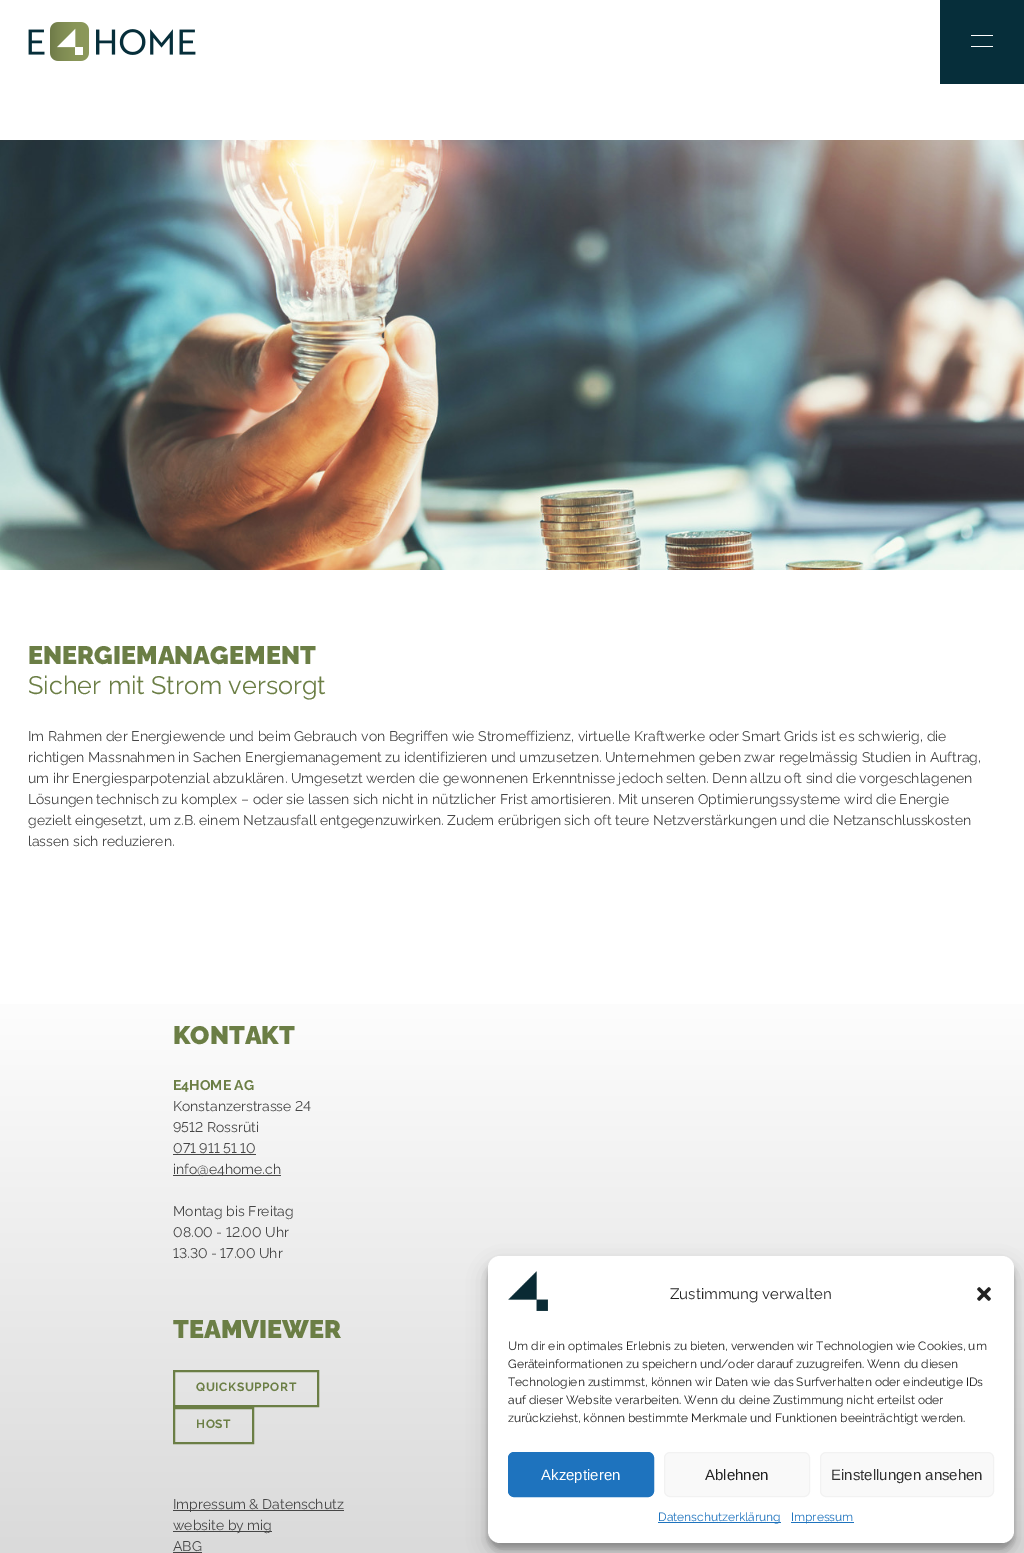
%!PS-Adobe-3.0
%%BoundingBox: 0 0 1024 1553
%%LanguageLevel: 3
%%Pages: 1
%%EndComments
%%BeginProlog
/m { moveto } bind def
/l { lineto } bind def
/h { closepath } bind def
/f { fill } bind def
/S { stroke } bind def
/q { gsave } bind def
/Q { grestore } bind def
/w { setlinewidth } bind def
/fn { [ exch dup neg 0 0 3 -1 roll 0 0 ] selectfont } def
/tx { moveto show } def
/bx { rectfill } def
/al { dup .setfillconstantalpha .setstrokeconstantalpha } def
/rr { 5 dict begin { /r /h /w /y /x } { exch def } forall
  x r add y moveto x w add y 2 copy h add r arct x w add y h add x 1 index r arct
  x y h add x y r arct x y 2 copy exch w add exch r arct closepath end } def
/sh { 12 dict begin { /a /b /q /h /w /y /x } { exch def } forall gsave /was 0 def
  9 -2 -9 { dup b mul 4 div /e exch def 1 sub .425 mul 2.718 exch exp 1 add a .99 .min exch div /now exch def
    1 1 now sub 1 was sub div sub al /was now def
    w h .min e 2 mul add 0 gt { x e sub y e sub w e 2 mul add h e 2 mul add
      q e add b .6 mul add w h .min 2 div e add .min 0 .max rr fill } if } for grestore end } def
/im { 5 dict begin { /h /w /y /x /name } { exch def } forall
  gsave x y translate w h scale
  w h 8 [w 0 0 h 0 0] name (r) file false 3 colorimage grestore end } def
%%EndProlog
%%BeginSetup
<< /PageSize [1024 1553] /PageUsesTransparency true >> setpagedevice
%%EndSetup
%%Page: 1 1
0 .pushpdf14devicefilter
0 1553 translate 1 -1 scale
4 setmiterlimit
1 setgray
0 0 1024 1553 bx
(image0.raw) 28 22 168 39 im
0.024 0.18 0.227 setrgbcolor
940 0 84 84 bx
1 setgray
971 35 22 1 bx
971 46 22 1 bx
(image1.raw) 0 140 1024 430 im
/Raleway-Black 25.25 fn
0.42 0.494 0.271 setrgbcolor
(ENERGIEMANAGEMENT) 28 664 tx
/Raleway-Regular 25.25 fn
(Sicher mit Strom versorgt) 28 694 tx
/Raleway-Regular 14 fn
0.275 setgray
(Im Rahmen der Energiewende und beim Gebrauch von Begriffen wie Stromeffizienz, virtuelle Kraftwerke oder Smart Grids ist es schwierig, die) 28 741 tx
(richtigen Massnahmen in Sachen Energiemanagement zu identifizieren und umzusetzen. Unternehmen geben zwar regelmässig Studien in Auftrag,) 28 762 tx
(um ihr Energiesparpotenzial abzuklären. Umgesetzt werden die gewonnenen Erkenntnisse jedoch selten. Denn allzu oft sind die vorgeschlagenen) 28 783 tx
(Lösungen technisch zu komplex – oder sie lassen sich nicht in nützlicher Frist amortisieren. Mit unseren Optimierungssysteme wird die Energie) 28 804 tx
(gezielt eingesetzt, um z.B. einem Netzausfall entgegenzuwirken. Zudem erübrigen sich oft teure Netzverstärkungen und die Netzanschlusskosten) 28 825 tx
(lassen sich reduzieren.) 28 846 tx
q 0 1004 m 1024 1004 l 1024 1553 l 0 1553 l h clip newpath
<< /ShadingType 2 /ColorSpace /DeviceRGB /Coords [512 964 512 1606] /Extend [true true] /Function << /FunctionType 2 /Domain [0 1] /C0 [1 1 1] /C1 [0.843 0.843 0.843] /N 1 >> >> shfill Q
/Raleway-Black 25.25 fn
0.42 0.494 0.271 setrgbcolor
(KONTAKT) 173 1044 tx
/Raleway-Bold 14 fn
(E4HOME AG) 173 1090 tx
/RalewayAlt-Regular 14 fn
0.275 setgray
(Konstanzerstrasse 24) 173 1111 tx
(9512 Rossrüti) 173 1132 tx
(071 911 51 10) 173 1153 tx
173 1154 83 1 bx
173 1175 108 1 bx
/Raleway-Regular 14 fn
(info@e4home.ch) 173 1174 tx
(Montag bis Freitag) 173 1216 tx
/RalewayAlt-Regular 14 fn
(08.00 - 12.00 Uhr) 173 1237 tx
(13.30 - 17.00 Uhr) 173 1258 tx
/Raleway-Black 25.25 fn
0.42 0.494 0.271 setrgbcolor
(TEAMVIEWER) 173 1338 tx
2 w
174 1371 144 35 rectstroke
/Raleway-Bold 12 fn
196 1391 m 0.6 0 (QUICKSUPPORT) ashow
174 1408 79 35 rectstroke
196 1428 m 0.6 0 (HOST) ashow
0.275 setgray
173 1510 171 1 bx
/Raleway-Regular 14 fn
(Impressum & Datenschutz) 173 1509 tx
173 1531 99 1 bx
(website by mig) 173 1530 tx
(ABG) 173 1551 tx
173 1552 29 1 bx
0 setgray
488 1262 526 287 12 3 0.23 sh
488 1266 526 287 12 10 0.19 sh
1 setgray
488 1256 526 287 12 rr f
(image2.raw) 508 1271 40 40 im
/Raleway-Regular 15 fn
0.133 setgray
(Zustimmung verwalten) 670 1299 tx
(image3.raw) 977 1287 14 14 im
/Raleway-Regular 12 fn
(Um dir ein optimales Erlebnis zu bieten, verwenden wir Technologien wie Cookies, um) 508 1350 tx
(Geräteinformationen zu speichern und/oder darauf zuzugreifen. Wenn du diesen) 508 1368 tx
(Technologien zustimmst, können wir Daten wie das Surfverhalten oder eindeutige IDs) 508 1386 tx
(auf dieser Website verarbeiten. Wenn du deine Zustimmung nicht erteilst oder) 508 1404 tx
(zurückziehst, können bestimmte Merkmale und Funktionen beeinträchtigt werden.) 508 1422 tx
0.118 0.451 0.745 setrgbcolor
508.5 1452.5 145 44 5.5 rr q f Q
1 w
S
/LiberationSans-Regular 15 fn
1 setgray
(Akzeptieren) 541 1480 tx
0.976 setgray
664.5 1452.5 145 44 5.5 rr q f Q
0.949 setgray
S
0.133 setgray
(Ablehnen) 705 1480 tx
0.976 setgray
820.5 1452.5 173 44 5.5 rr q f Q
0.949 setgray
S
0.2 setgray
(Einstellungen ansehen) 831 1480 tx
0.118 0.451 0.745 setrgbcolor
658 1522 123 1 bx
/Raleway-Regular 12 fn
(Datenschutzerklärung) 658 1521 tx
791 1522 63 1 bx
(Impressum) 791 1521 tx
.poppdf14devicefilter showpage
%%EOF
